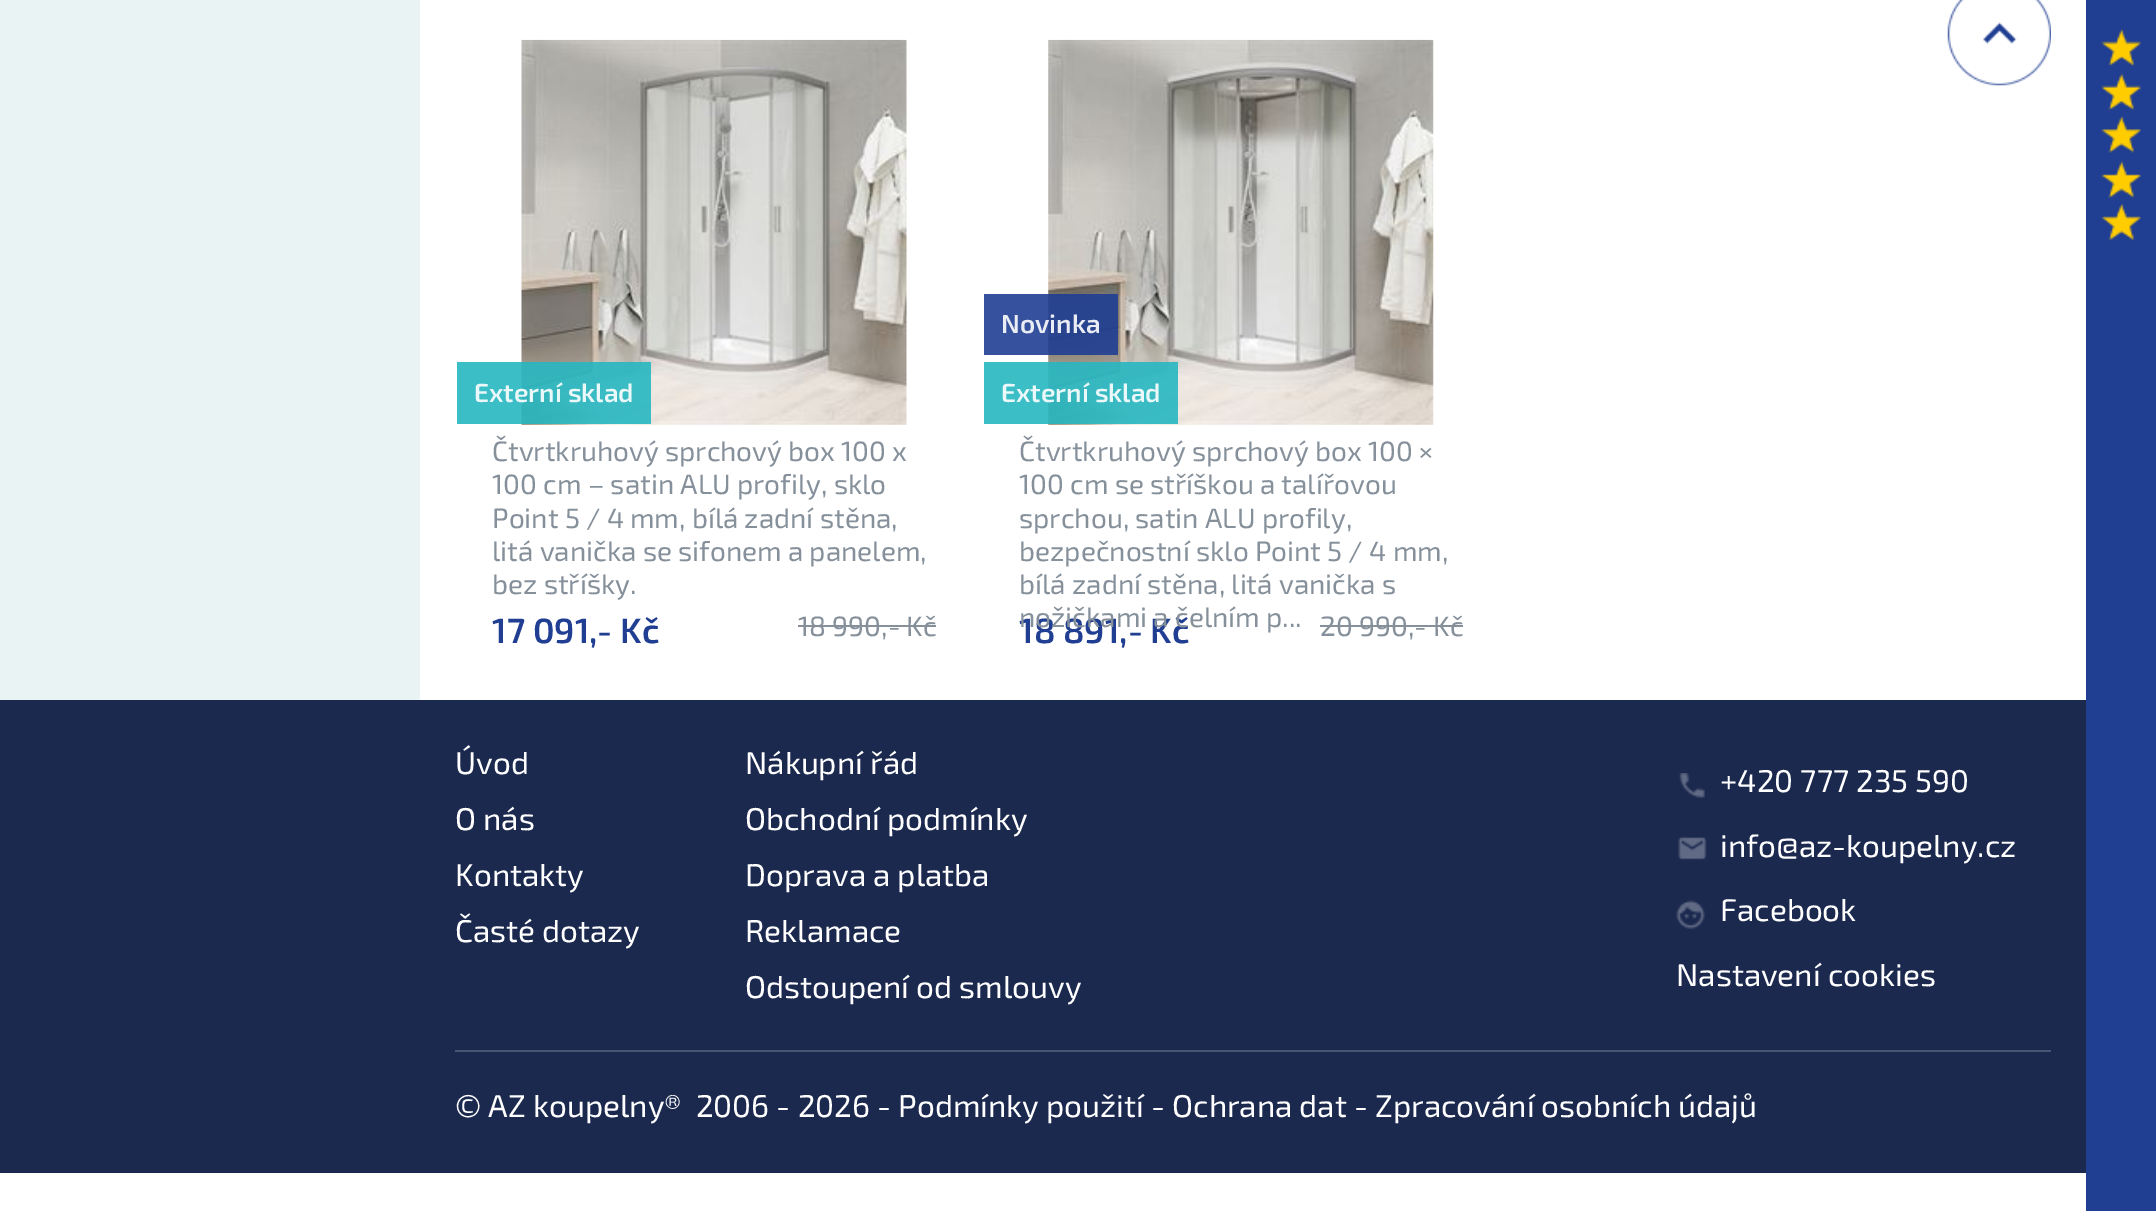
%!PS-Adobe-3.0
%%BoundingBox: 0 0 2156 1211
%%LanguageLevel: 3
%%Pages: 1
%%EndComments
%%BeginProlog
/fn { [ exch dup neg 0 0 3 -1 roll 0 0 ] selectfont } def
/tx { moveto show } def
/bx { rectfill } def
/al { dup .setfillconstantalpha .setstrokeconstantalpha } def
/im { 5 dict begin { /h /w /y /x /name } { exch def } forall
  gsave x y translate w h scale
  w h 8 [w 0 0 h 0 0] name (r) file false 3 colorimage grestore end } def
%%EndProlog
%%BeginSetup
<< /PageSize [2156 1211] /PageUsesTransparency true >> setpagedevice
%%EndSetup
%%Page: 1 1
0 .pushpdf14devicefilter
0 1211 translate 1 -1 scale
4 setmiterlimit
1 setgray
0 0 2156 1211 bx
0.914 0.953 0.957 setrgbcolor
0 0 420 700 bx
0.11 0.161 0.31 setrgbcolor
0 700 2086 473 bx
(image0.raw) 1947 0 104 86 im
(image1.raw) 521 39 386 386 im
0.9 al
0.153 0.718 0.757 setrgbcolor
457 362 194 62 bx
/Exo2-SemiBold 26.25 fn
1 al
0.922 0.973 0.976 setrgbcolor
(Externí sklad) 474 402 tx
/Exo2-Regular 28 fn
0.522 0.565 0.604 setrgbcolor
(Čtvrtkruhový sprchový box 100 x) 492 461 tx
(100 cm – satin ALU profily, sklo) 492 494 tx
(Point 5 / 4 mm, bílá zadní stěna,) 492 528 tx
(litá vanička se sifonem a panelem,) 492 561 tx
(bez stříšky.) 492 594 tx
/Exo2-SemiBold 35 fn
0.125 0.243 0.573 setrgbcolor
(17 091,- Kč) 492 643 tx
/Exo2-Regular 28 fn
0.522 0.565 0.604 setrgbcolor
(18 990,- Kč) 798 636 tx
798 625 138 2 bx
(image2.raw) 1048 39 386 386 im
0.9 al
0.125 0.243 0.573 setrgbcolor
984 294 134 61 bx
/Exo2-SemiBold 26.25 fn
1 al
0.918 0.929 0.957 setrgbcolor
(Novinka) 1001 333 tx
0.9 al
0.153 0.718 0.757 setrgbcolor
984 362 194 62 bx
1 al
0.922 0.973 0.976 setrgbcolor
(Externí sklad) 1001 402 tx
/Exo2-Regular 28 fn
0.522 0.565 0.604 setrgbcolor
(Čtvrtkruhový sprchový box 100 ×) 1019 461 tx
(100 cm se stříškou a talířovou) 1019 494 tx
(sprchou, satin ALU profily,) 1019 528 tx
(bezpečnostní sklo Point 5 / 4 mm,) 1019 561 tx
(bílá zadní stěna, litá vanička s) 1019 594 tx
/Exo2-SemiBold 35 fn
0.125 0.243 0.573 setrgbcolor
(18 891,- Kč) 1019 643 tx
/Exo2-Regular 28 fn
0.522 0.565 0.604 setrgbcolor
(nožičkami a čelním p...) 1019 627 tx
(20 990,- Kč) 1320 636 tx
1320 625 143 2 bx
/Exo2-Regular 31.5 fn
1 setgray
(Úvod) 455 774 tx
(O nás) 455 830 tx
(Kontakty) 455 886 tx
(Časté dotazy) 455 942 tx
(Nákupní řád) 745 774 tx
(Obchodní podmínky) 745 830 tx
(Doprava a platba) 745 886 tx
(Reklamace) 745 942 tx
(Odstoupení od smlouvy) 745 998 tx
(image3.raw) 1679 773 26 25 im
(+420 777 235 590) 1720 792 tx
(image4.raw) 1678 837 29 23 im
(info@az-koupelny.cz) 1720 857 tx
(image5.raw) 1676 900 29 29 im
(Facebook) 1720 921 tx
(Nastavení cookies) 1676 986 tx
0.286 0.329 0.447 setrgbcolor
455 1050 1596 2 bx
1 setgray
(© AZ koupelny®  2006 - 2026 - Podmínky použití - Ochrana dat - Zpracování osobních údajů) 455 1117 tx
0.125 0.243 0.573 setrgbcolor
2086 0 70 1211 bx
(image6.raw) 2101 29 40 212 im
.poppdf14devicefilter showpage
%%EOF
